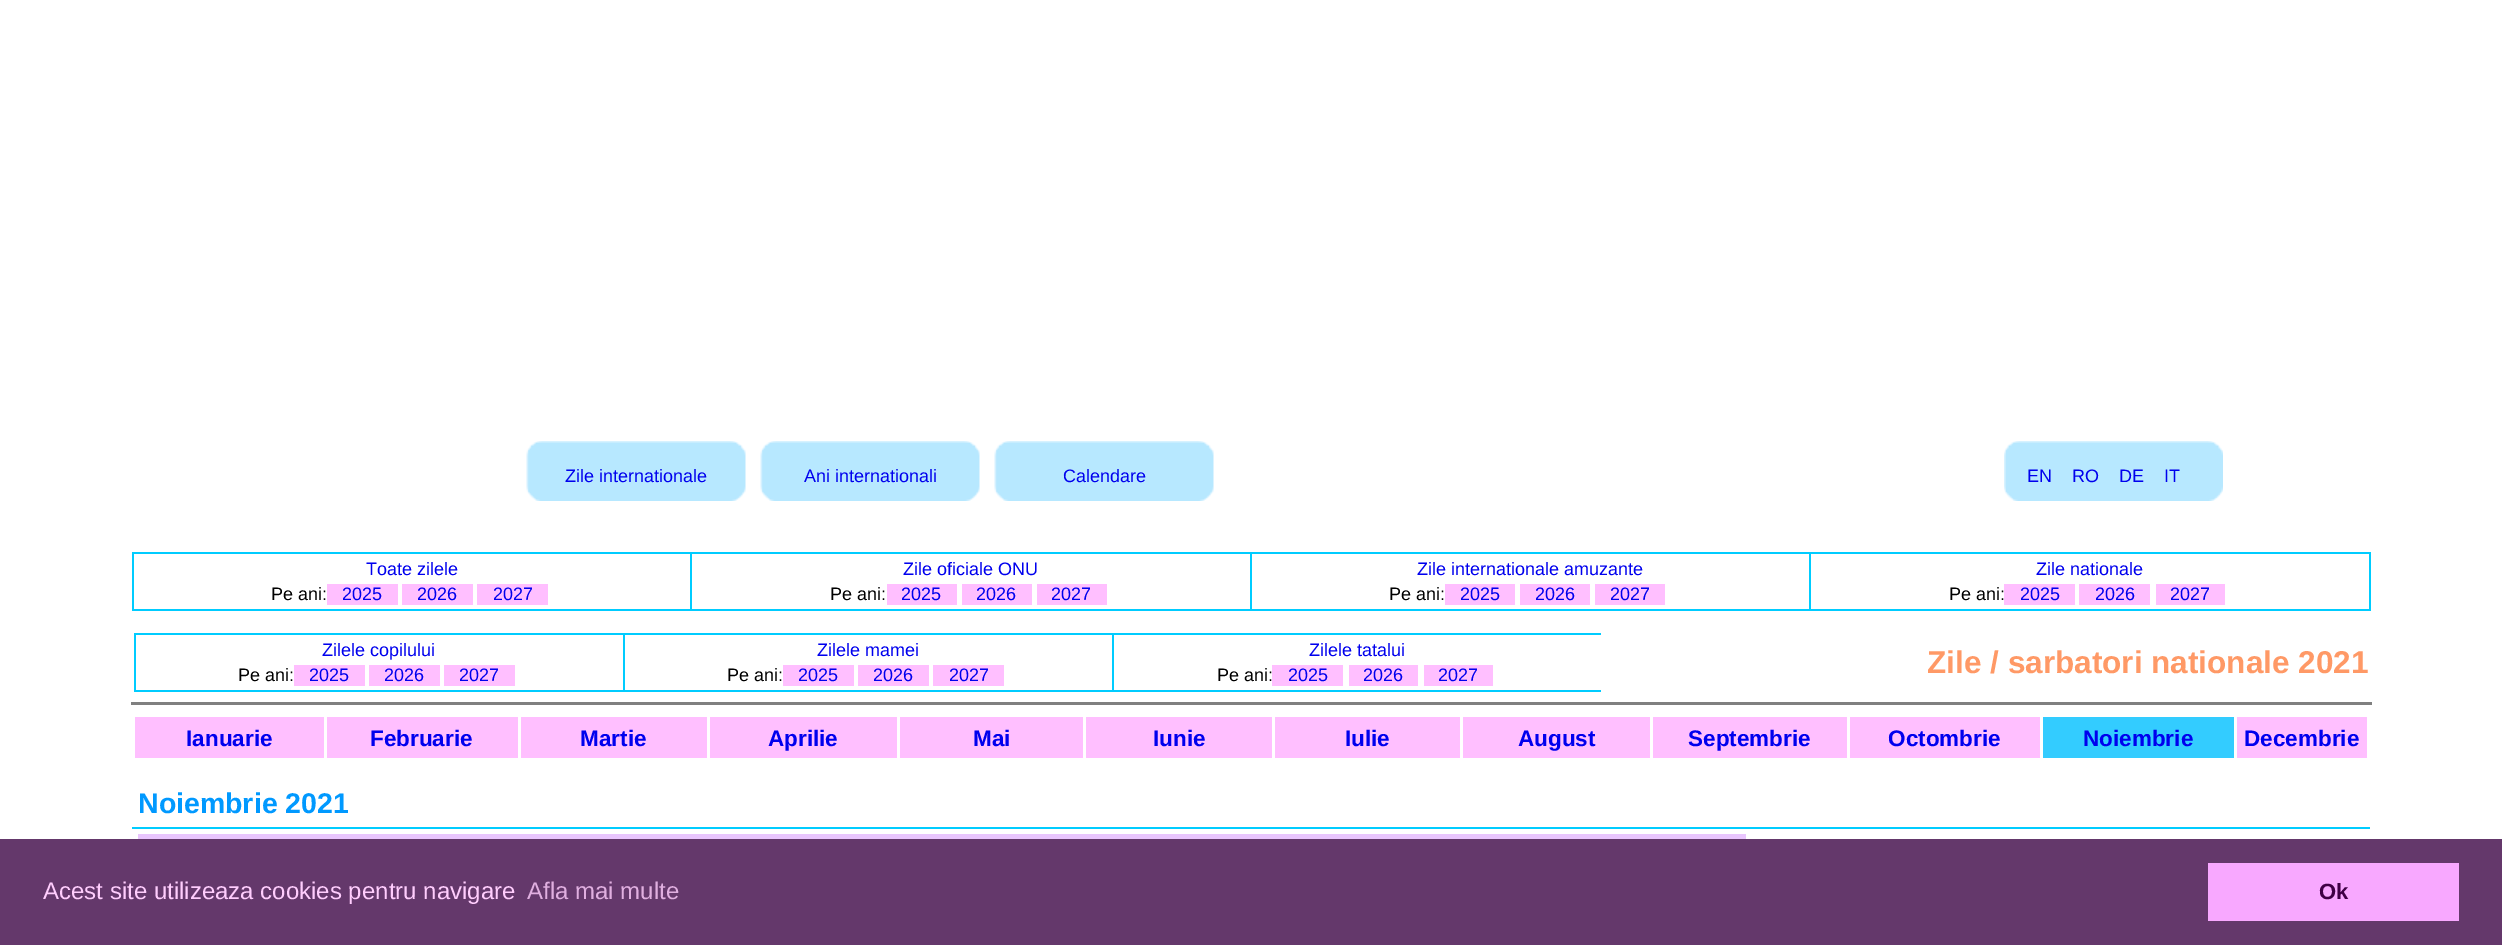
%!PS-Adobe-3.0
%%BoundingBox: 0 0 2502 945
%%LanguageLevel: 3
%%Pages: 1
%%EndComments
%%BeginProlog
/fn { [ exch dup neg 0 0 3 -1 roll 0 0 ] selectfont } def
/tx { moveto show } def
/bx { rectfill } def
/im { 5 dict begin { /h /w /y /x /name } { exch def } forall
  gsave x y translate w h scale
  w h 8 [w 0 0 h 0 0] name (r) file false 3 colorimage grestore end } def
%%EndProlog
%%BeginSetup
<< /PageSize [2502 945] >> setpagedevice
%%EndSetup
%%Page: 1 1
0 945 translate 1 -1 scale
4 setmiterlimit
1 setgray
0 0 2502 945 bx
(image0.raw) 526 441 220 60 im
/LiberationSans-Regular 18 fn
0 0 0.933 setrgbcolor
(Zile internationale) 565 482 tx
(image1.raw) 760 441 220 60 im
(Ani internationali) 804 482 tx
(image1.raw) 994 441 220 60 im
(Calendare) 1063 482 tx
(image2.raw) 2004 441 219 60 im
(EN) 2027 482 tx
(RO) 2072 482 tx
(DE) 2119 482 tx
(IT) 2164 482 tx
0 0.8 1 setrgbcolor
132 552 2238 2 bx
132 552 2 32 bx
0 0 0.933 setrgbcolor
(Toate zilele) 366 575 tx
0 0.8 1 setrgbcolor
690 552 2 32 bx
0 0 0.933 setrgbcolor
(Zile oficiale ONU) 903 575 tx
0 0.8 1 setrgbcolor
1250 552 2 32 bx
0 0 0.933 setrgbcolor
(Zile internationale amuzante) 1417 575 tx
0 0.8 1 setrgbcolor
2369 552 2 59 bx
1809 552 2 32 bx
0 0 0.933 setrgbcolor
(Zile nationale) 2036 575 tx
0 0.8 1 setrgbcolor
132 609 2238 2 bx
132 584 2 27 bx
0 setgray
(Pe ani:) 271 600 tx
1 0.749 1 setrgbcolor
327 584 71 21 bx
0 0 0.933 setrgbcolor
(2025) 342 600 tx
1 0.749 1 setrgbcolor
402 584 71 21 bx
0 0 0.933 setrgbcolor
(2026) 417 600 tx
1 0.749 1 setrgbcolor
477 584 71 21 bx
0 0 0.933 setrgbcolor
(2027) 493 600 tx
0 0.8 1 setrgbcolor
690 584 2 27 bx
0 setgray
(Pe ani:) 830 600 tx
1 0.749 1 setrgbcolor
887 584 70 21 bx
0 0 0.933 setrgbcolor
(2025) 901 600 tx
1 0.749 1 setrgbcolor
962 584 70 21 bx
0 0 0.933 setrgbcolor
(2026) 976 600 tx
1 0.749 1 setrgbcolor
1037 584 70 21 bx
0 0 0.933 setrgbcolor
(2027) 1051 600 tx
0 0.8 1 setrgbcolor
1250 584 2 27 bx
0 setgray
(Pe ani:) 1389 600 tx
1 0.749 1 setrgbcolor
1445 584 70 21 bx
0 0 0.933 setrgbcolor
(2025) 1460 600 tx
1 0.749 1 setrgbcolor
1520 584 70 21 bx
0 0 0.933 setrgbcolor
(2026) 1535 600 tx
1 0.749 1 setrgbcolor
1595 584 70 21 bx
0 0 0.933 setrgbcolor
(2027) 1610 600 tx
0 0.8 1 setrgbcolor
1809 584 2 27 bx
0 setgray
(Pe ani:) 1949 600 tx
1 0.749 1 setrgbcolor
2004 584 71 21 bx
0 0 0.933 setrgbcolor
(2025) 2020 600 tx
1 0.749 1 setrgbcolor
2079 584 71 21 bx
0 0 0.933 setrgbcolor
(2026) 2095 600 tx
1 0.749 1 setrgbcolor
2156 584 69 21 bx
0 0 0.933 setrgbcolor
(2027) 2170 600 tx
0 0.8 1 setrgbcolor
134 633 1467 2 bx
134 633 2 32 bx
0 0 0.933 setrgbcolor
(Zilele copilului) 322 656 tx
0 0.8 1 setrgbcolor
623 633 2 32 bx
0 0 0.933 setrgbcolor
(Zilele mamei) 817 656 tx
0 0.8 1 setrgbcolor
1112 633 2 32 bx
0 0 0.933 setrgbcolor
(Zilele tatalui) 1309 656 tx
0 0.8 1 setrgbcolor
134 690 1467 2 bx
134 665 2 27 bx
0 setgray
(Pe ani:) 238 681 tx
1 0.749 1 setrgbcolor
294 665 71 21 bx
0 0 0.933 setrgbcolor
(2025) 309 681 tx
1 0.749 1 setrgbcolor
369 665 71 21 bx
0 0 0.933 setrgbcolor
(2026) 384 681 tx
1 0.749 1 setrgbcolor
444 665 71 21 bx
0 0 0.933 setrgbcolor
(2027) 459 681 tx
0 0.8 1 setrgbcolor
623 665 2 27 bx
0 setgray
(Pe ani:) 727 681 tx
1 0.749 1 setrgbcolor
783 665 71 21 bx
0 0 0.933 setrgbcolor
(2025) 798 681 tx
1 0.749 1 setrgbcolor
858 665 71 21 bx
0 0 0.933 setrgbcolor
(2026) 873 681 tx
1 0.749 1 setrgbcolor
933 665 71 21 bx
0 0 0.933 setrgbcolor
(2027) 949 681 tx
0 0.8 1 setrgbcolor
1112 665 2 27 bx
0 setgray
(Pe ani:) 1217 681 tx
1 0.749 1 setrgbcolor
1272 665 71 21 bx
0 0 0.933 setrgbcolor
(2025) 1288 681 tx
1 0.749 1 setrgbcolor
1349 665 69 21 bx
0 0 0.933 setrgbcolor
(2026) 1363 681 tx
1 0.749 1 setrgbcolor
1424 665 69 21 bx
0 0 0.933 setrgbcolor
(2027) 1438 681 tx
/LiberationSans-Bold 31.5 fn
1 0.6 0.4 setrgbcolor
(Zile / sarbatori nationale 2021) 1927 673 tx
0.502 setgray
131 702 2241 3 bx
1 0.749 1 setrgbcolor
135 717 189 41 bx
/LiberationSans-Bold 22.5 fn
0 0 0.933 setrgbcolor
(Ianuarie) 186 746 tx
1 0.749 1 setrgbcolor
327 717 191 41 bx
0 0 0.933 setrgbcolor
(Februarie) 370 746 tx
1 0.749 1 setrgbcolor
521 717 186 41 bx
0 0 0.933 setrgbcolor
(Martie) 580 746 tx
1 0.749 1 setrgbcolor
710 717 187 41 bx
0 0 0.933 setrgbcolor
(Aprilie) 768 746 tx
1 0.749 1 setrgbcolor
900 717 183 41 bx
0 0 0.933 setrgbcolor
(Mai) 973 746 tx
1 0.749 1 setrgbcolor
1086 717 186 41 bx
0 0 0.933 setrgbcolor
(Iunie) 1153 746 tx
1 0.749 1 setrgbcolor
1275 717 185 41 bx
0 0 0.933 setrgbcolor
(Iulie) 1345 746 tx
1 0.749 1 setrgbcolor
1463 717 187 41 bx
0 0 0.933 setrgbcolor
(August) 1518 746 tx
1 0.749 1 setrgbcolor
1653 717 194 41 bx
0 0 0.933 setrgbcolor
(Septembrie) 1688 746 tx
1 0.749 1 setrgbcolor
1850 717 190 41 bx
0 0 0.933 setrgbcolor
(Octombrie) 1888 746 tx
0.2 0.8 1 setrgbcolor
2043 717 191 41 bx
0 0 0.933 setrgbcolor
(Noiembrie) 2083 746 tx
1 0.749 1 setrgbcolor
2237 717 130 41 bx
0 0 0.933 setrgbcolor
(Decembrie) 2244 746 tx
0 0.8 1 setrgbcolor
132 827 2238 2 bx
/LiberationSans-Bold 28.5 fn
0 0.6 1 setrgbcolor
(Noiembrie 2021) 138 813 tx
0.914 0.773 0.996 setrgbcolor
138 834 1608 5 bx
0.392 0.22 0.42 setrgbcolor
0 839 2502 106 bx
/LiberationSans-Regular 24 fn
1 0.804 0.992 setrgbcolor
(Acest site utilizeaza cookies pentru navigare) 43 899 tx
0.878 0.686 0.878 setrgbcolor
(Afla mai multe) 527 899 tx
0.973 0.659 1 setrgbcolor
2208 863 251 58 bx
/LiberationSans-Bold 22 fn
0.247 0 0.271 setrgbcolor
(Ok) 2319 899 tx
showpage
%%EOF
